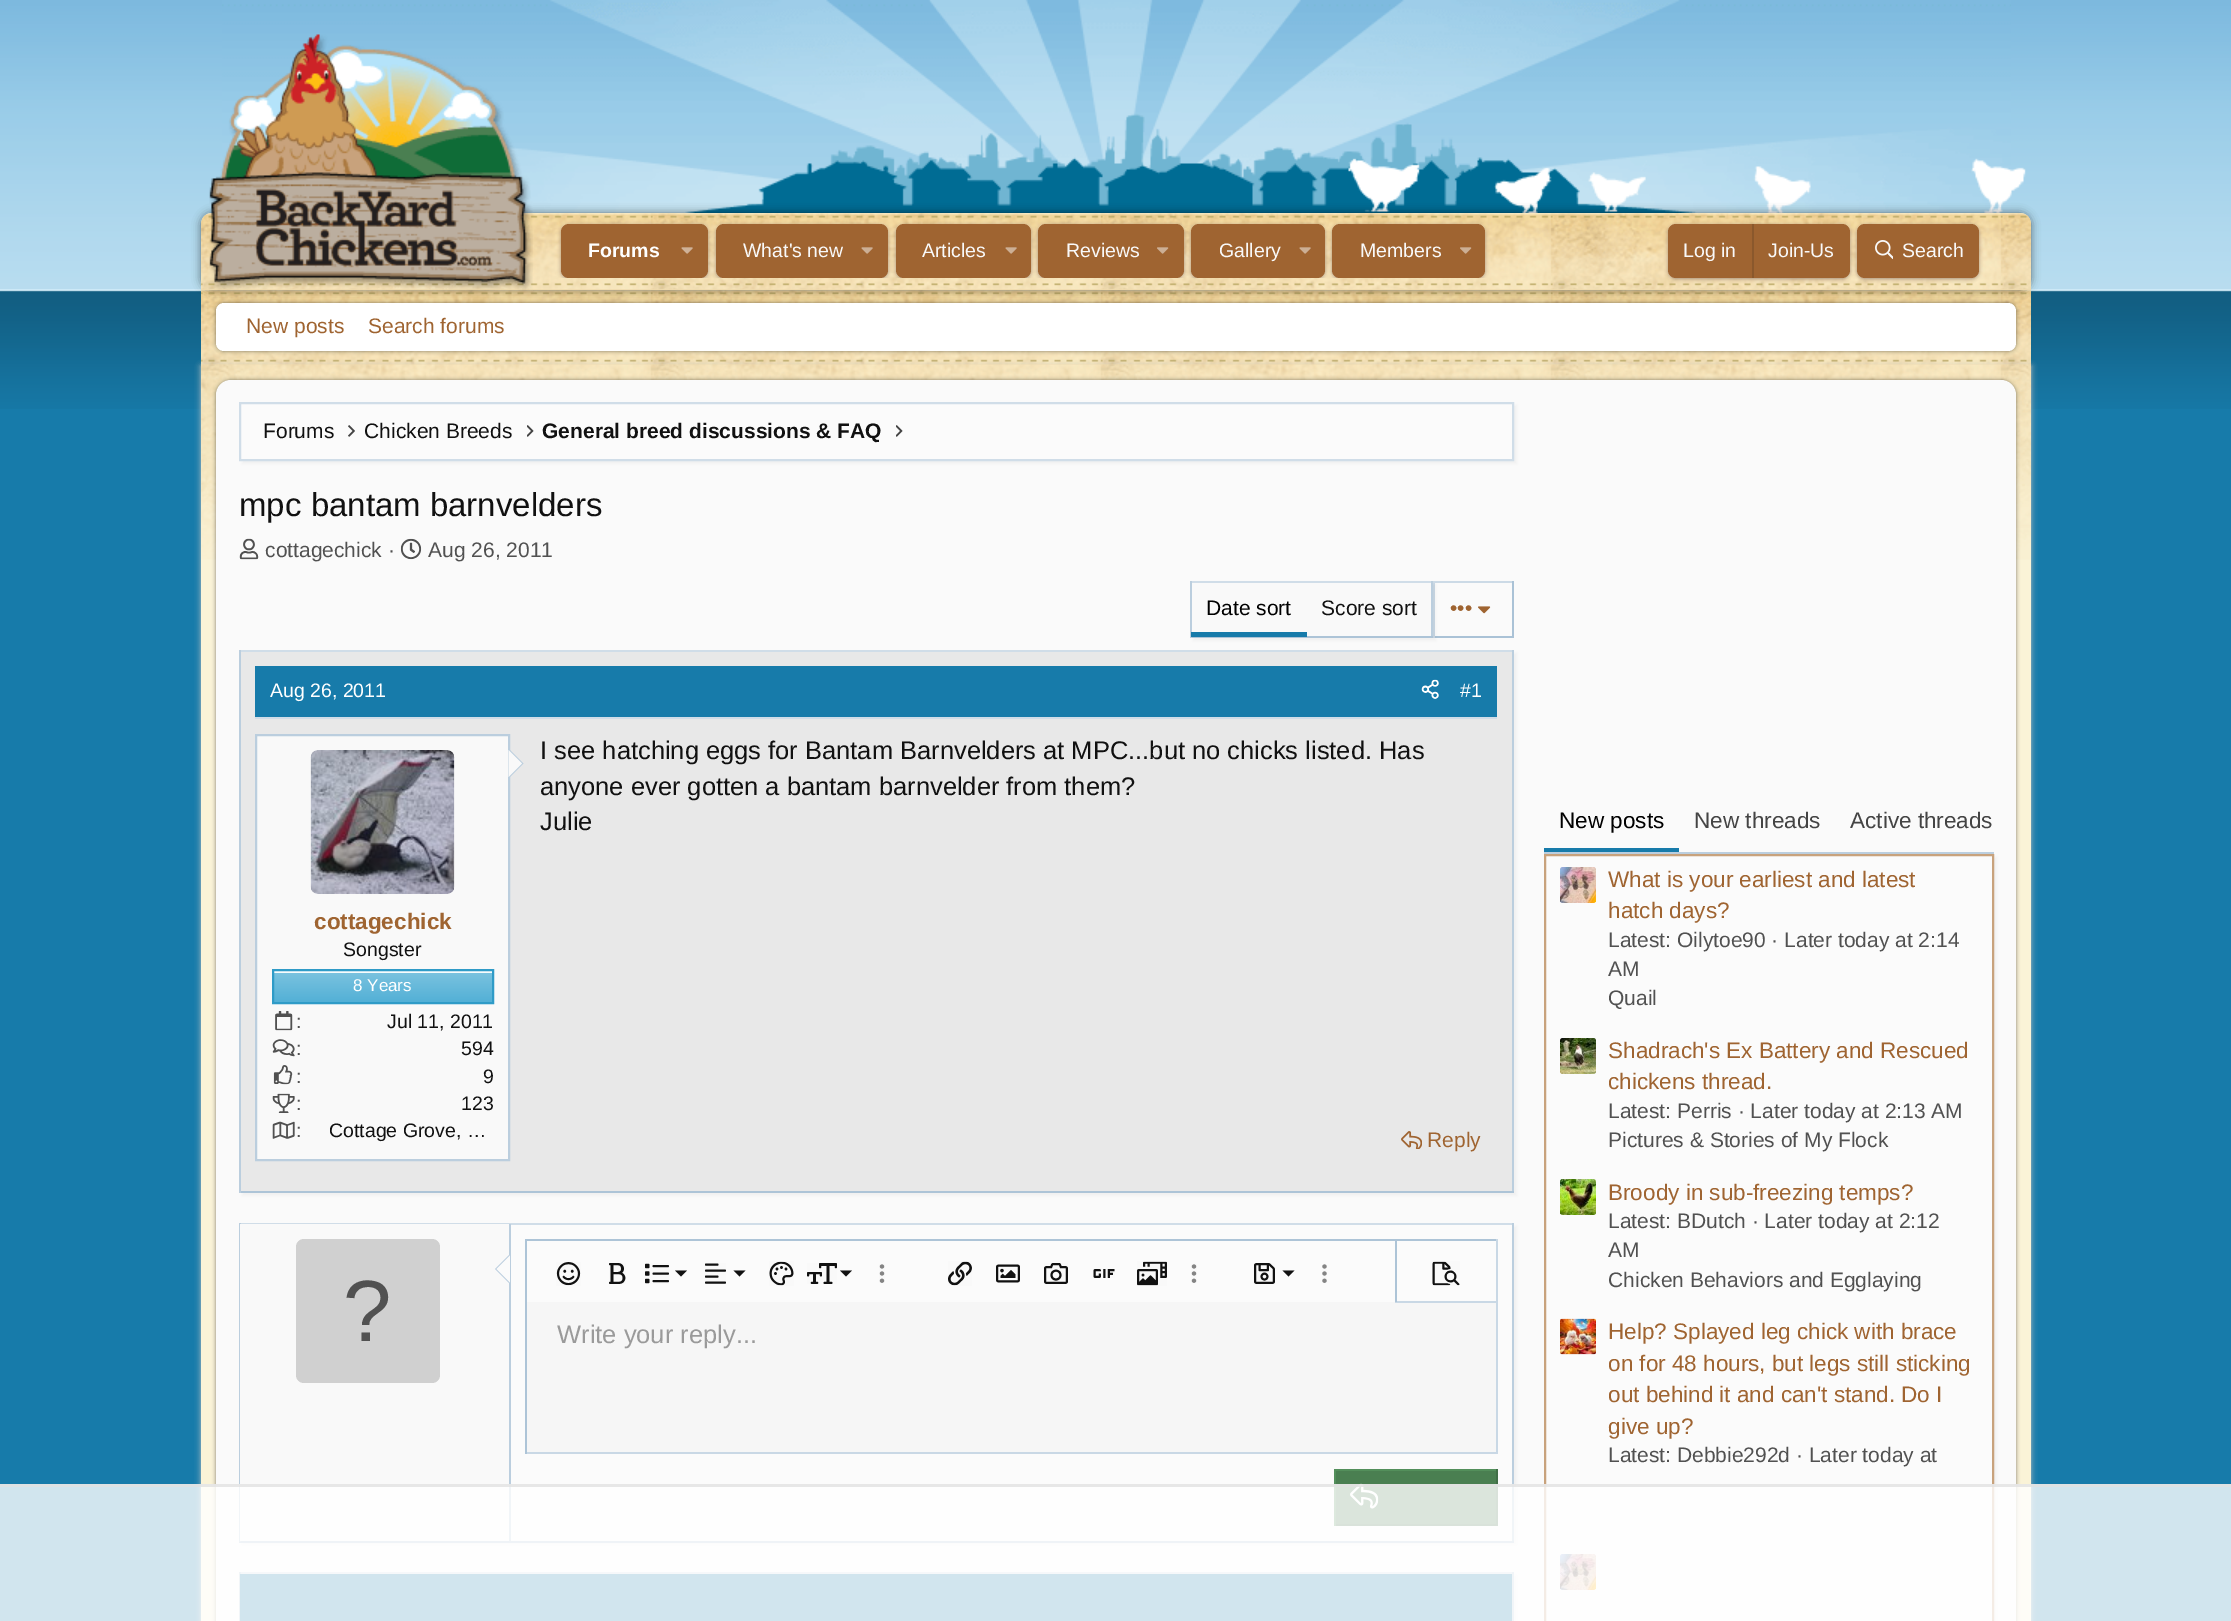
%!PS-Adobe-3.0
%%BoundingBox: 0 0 2231 1621
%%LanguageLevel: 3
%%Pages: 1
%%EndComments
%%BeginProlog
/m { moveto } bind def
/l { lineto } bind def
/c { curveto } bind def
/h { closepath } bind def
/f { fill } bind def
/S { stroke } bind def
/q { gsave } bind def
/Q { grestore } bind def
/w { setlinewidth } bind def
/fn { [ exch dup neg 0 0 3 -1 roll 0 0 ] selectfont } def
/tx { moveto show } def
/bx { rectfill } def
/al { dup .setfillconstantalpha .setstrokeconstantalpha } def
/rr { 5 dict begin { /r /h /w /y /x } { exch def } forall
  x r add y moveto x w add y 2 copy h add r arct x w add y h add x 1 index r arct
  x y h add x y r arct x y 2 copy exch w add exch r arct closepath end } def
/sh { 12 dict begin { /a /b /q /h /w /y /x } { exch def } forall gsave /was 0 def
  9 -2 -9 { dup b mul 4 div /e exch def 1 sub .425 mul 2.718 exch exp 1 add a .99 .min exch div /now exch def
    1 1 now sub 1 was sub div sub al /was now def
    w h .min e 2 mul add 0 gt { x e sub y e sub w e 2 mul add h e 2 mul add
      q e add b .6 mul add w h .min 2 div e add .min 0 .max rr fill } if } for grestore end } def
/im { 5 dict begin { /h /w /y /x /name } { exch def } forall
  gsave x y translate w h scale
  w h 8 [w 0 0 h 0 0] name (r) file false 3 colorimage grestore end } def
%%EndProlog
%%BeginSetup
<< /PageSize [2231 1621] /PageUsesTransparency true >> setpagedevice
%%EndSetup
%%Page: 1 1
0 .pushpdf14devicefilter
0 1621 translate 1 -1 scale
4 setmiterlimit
0.09 0.482 0.667 setrgbcolor
0 0 2231 1621 bx
(image0.raw) 0 0 2231 409 im
(image1.raw) 222 0 1789 213 im
(image2.raw) 1494 158 532 55 im
(image9.raw) 201 290 1830 75 im
0 setgray
216 303 1800 48 8 2 0.5 sh
1 setgray
216 303 1800 48 8 rr f
0 setgray
201 213 1830 77 11 4.5 0.5 sh
0.937 0.855 0.675 setrgbcolor
212 213 m 2020 213 l 2026 213 2031 218 2031 224 c 2031 290 l 201 290 l 201 224 l 201 218 206 213 212 213 c h f
(image4.raw) 201 213 1830 77 im
(image3.raw) 209 34 324 257 im
q
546 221 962 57 rectclip
0.647 0.553 0.471 setrgbcolor
561 225 147 54 8 2 1 sh
Q
0.624 0.392 0.192 setrgbcolor
561 224 147 54 8 rr f
/LiberationSans-Bold 19.5 fn
1 setgray
(Forums) 588 257 tx
(image5.raw) 681 247 12 7 im
q
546 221 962 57 rectclip
0.647 0.553 0.471 setrgbcolor
716 225 172 54 8 2 1 sh
Q
0.624 0.392 0.192 setrgbcolor
716 224 172 54 8 rr f
/LiberationSans-Regular 19.5 fn
0.976 setgray
(What's new) 743 257 tx
(image6.raw) 861 247 12 7 im
q
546 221 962 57 rectclip
0.647 0.553 0.471 setrgbcolor
896 225 135 54 8 2 1 sh
Q
0.624 0.392 0.192 setrgbcolor
896 224 135 54 8 rr f
0.976 setgray
(Articles) 922 257 tx
(image6.raw) 1005 247 12 7 im
q
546 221 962 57 rectclip
0.647 0.553 0.471 setrgbcolor
1038 225 146 54 8 2 1 sh
Q
0.624 0.392 0.192 setrgbcolor
1038 224 146 54 8 rr f
0.976 setgray
(Reviews) 1066 257 tx
(image7.raw) 1157 247 12 7 im
q
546 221 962 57 rectclip
0.647 0.553 0.471 setrgbcolor
1191 225 134 54 8 2 1 sh
Q
0.624 0.392 0.192 setrgbcolor
1191 224 134 54 8 rr f
0.976 setgray
(Gallery) 1219 257 tx
(image6.raw) 1299 247 12 7 im
q
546 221 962 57 rectclip
0.647 0.553 0.471 setrgbcolor
1332 225 153 54 8 2 1 sh
Q
0.624 0.392 0.192 setrgbcolor
1332 224 153 54 8 rr f
0.976 setgray
(Members) 1360 257 tx
(image7.raw) 1460 247 12 7 im
0.647 0.553 0.471 setrgbcolor
1668 225 182 54 8 2 1 sh
0.624 0.392 0.192 setrgbcolor
1668 224 182 54 8 rr f
0.976 setgray
(Log in) 1683 257 tx
0.541 0.345 0.173 setrgbcolor
1752 224 2 54 bx
0.976 setgray
(Join-Us) 1768 257 tx
0.647 0.553 0.471 setrgbcolor
1857 225 122 54 8 2 1 sh
0.624 0.392 0.192 setrgbcolor
1857 224 122 54 8 rr f
(image8.raw) 1875 240 18 20 im
0.976 setgray
(Search) 1902 257 tx
/LiberationSans-Regular 21 fn
0.624 0.392 0.192 setrgbcolor
(New posts) 246 333 tx
(Search forums) 368 333 tx
0.761 setgray
201 366 1830 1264 0 3 1 sh
0.98 0.953 0.843 setrgbcolor
201 559 1830 1062 bx
(image10.raw) 201 364 1830 196 im
0 setgray
216 380 1800 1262 15 2 0.5 sh
0.98 setgray
216 380 1800 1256 15 rr f
0 setgray
242 405 1275 59 0 1.5 0.04 sh
0.984 setgray
240 403 m 1513 403 l 1513 460 l 240 460 l h q f Q
0.816 0.867 0.91 setrgbcolor
2 w
S
0.067 setgray
(Forums) 263 438 tx
(image11.raw) 348 425 7 12 im
(Chicken Breeds) 364 438 tx
(image12.raw) 527 425 7 12 im
/LiberationSans-Bold 21 fn
(General breed discussions & FAQ) 542 438 tx
(image12.raw) 896 425 7 12 im
/LiberationSans-Regular 33 fn
(mpc bantam barnvelders) 239 516 tx
(image13.raw) 239 538 20 22 im
/LiberationSans-Regular 21 fn
0.318 setgray
(cottagechick ·) 265 557 tx
(image14.raw) 400 538 22 22 im
(Aug 26, 2011) 428 557 tx
0.8 0.855 0.902 setrgbcolor
1433 581 81 2 bx
0.667 0.761 0.839 setrgbcolor
1512 581 2 57 bx
1433 636 81 2 bx
0.8 0.855 0.902 setrgbcolor
1433 581 2 57 bx
0 setgray
1193 584 243 57 0 1.5 0.04 sh
0.976 setgray
1192 583 239 53 bx
0.816 0.867 0.91 setrgbcolor
1190 581 243 2 bx
0.733 0.808 0.871 setrgbcolor
1431 581 2 57 bx
0.678 0.769 0.843 setrgbcolor
1190 636 243 2 bx
0.733 0.808 0.871 setrgbcolor
1190 581 2 57 bx
0.09 0.482 0.667 setrgbcolor
1191 632 116 5 bx
0 setgray
(Date sort) 1206 615 tx
0.067 setgray
(Score sort) 1321 615 tx
0.624 0.392 0.192 setrgbcolor
(•••) 1450 615 tx
(image15.raw) 1478 606 13 8 im
0 setgray
242 653 1275 543 0 1.5 0.04 sh
0.91 setgray
241 652 1271 539 bx
0.816 0.867 0.91 setrgbcolor
239 650 1275 2 bx
0.733 0.808 0.871 setrgbcolor
1512 650 2 543 bx
0.678 0.769 0.843 setrgbcolor
239 1191 1275 2 bx
0.733 0.808 0.871 setrgbcolor
239 650 2 543 bx
0.09 0.482 0.667 setrgbcolor
255 666 1242 51 bx
0.816 0.867 0.91 setrgbcolor
255 717 1242 2 bx
/LiberationSans-Regular 19.5 fn
1 setgray
(Aug 26, 2011) 270 697 tx
(image16.raw) 1421 679 18 20 im
(#1) 1460 697 tx
0.976 setgray
256 735 m 509 735 l 509 1160 l 256 1160 l h q f Q
0.733 0.808 0.871 setrgbcolor
S
(image17.raw) 310 750 145 144 im
508.5 778.5 m 508.5 748.5 l 523.5 763.5 l h f
0.976 setgray
508.5 777 m 508.5 750 l 522 763.5 l h f
/LiberationSans-Bold 22.5 fn
0.624 0.392 0.192 setrgbcolor
(cottagechick) 314 929 tx
/LiberationSans-Regular 19.5 fn
0.067 setgray
(Songster) 343 956 tx
q 274 973 m 492 973 l 492 1002 l 274 1002 l h clip newpath
<< /ShadingType 2 /ColorSpace /DeviceRGB /Coords [383 971 383 1002] /Extend [true true] /Function << /FunctionType 2 /Domain [0 1] /C0 [0.486 0.765 0.878] /C1 [0.325 0.69 0.839] /N 1 >> >> shfill Q
0.973 0.988 0.992 setrgbcolor
273 971 219 2 bx
0.184 0.608 0.78 setrgbcolor
273 970 220 33 rectstroke
/LiberationSans-Regular 17 fn
1 setgray
(8 Years) 353 991 tx
(image18.raw) 275 1011 18 20 im
/LiberationSans-Regular 19.5 fn
0.318 setgray
(:) 296 1028 tx
0.067 setgray
(Jul 11, 2011) 387 1028 tx
(image19.raw) 272 1039 23 18 im
0.318 setgray
(:) 296 1055 tx
0.067 setgray
(594) 461 1055 tx
(image20.raw) 273 1065 20 20 im
0.318 setgray
(:) 296 1083 tx
0.067 setgray
(9) 483 1083 tx
(image21.raw) 272 1093 23 20 im
0.318 setgray
(:) 296 1110 tx
0.067 setgray
(123) 461 1110 tx
(image22.raw) 272 1121 23 18 im
0.318 setgray
(:) 296 1137 tx
0.067 setgray
(Cottage Grove, …) 329 1137 tx
/LiberationSans-Regular 25.5 fn
(I see hatching eggs for Bantam Barnvelders at MPC...but no chicks listed. Has) 540 759 tx
(anyone ever gotten a bantam barnvelder from them?) 540 795 tx
(Julie) 540 830 tx
(image23.raw) 1401 1131 21 18 im
/LiberationSans-Regular 21 fn
0.624 0.392 0.192 setrgbcolor
(Reply) 1427 1147 tx
0 setgray
242 1226 1275 319 0 1.5 0.04 sh
0.984 setgray
511 1225 1001 316 bx
0.816 0.867 0.91 setrgbcolor
239 1223 1275 2 bx
0.733 0.808 0.871 setrgbcolor
1512 1223 2 319 bx
0.678 0.769 0.843 setrgbcolor
239 1541 1275 2 bx
0.733 0.808 0.871 setrgbcolor
239 1223 2 319 bx
0.976 setgray
240 1224 269 317 bx
0.733 0.808 0.871 setrgbcolor
509 1224 2 317 bx
510 1254 m 510 1284 l 495 1269 l h f
0.984 setgray
510 1255.5 m 510 1282.5 l 496.5 1269 l h f
0.816 setgray
296 1239 144 144 8 rr f
/LiberationSans-Regular 87 fn
0.318 setgray
(?) 343 1341 tx
0.965 setgray
527 1302 969 150 bx
0.678 0.769 0.843 setrgbcolor
525 1239 972 2 bx
0.788 0.847 0.898 setrgbcolor
1496 1239 2 215 bx
525 1452 972 2 bx
0.678 0.769 0.843 setrgbcolor
525 1239 2 215 bx
(image24.raw) 556 1262 25 24 im
(image25.raw) 609 1263 17 21 im
(image26.raw) 645 1263 24 21 im
0.067 setgray
675 1270.5 m 687 1270.5 l 681 1276.5 l h f
(image27.raw) 705 1263 21 21 im
733.5 1270.5 m 745.5 1270.5 l 739.5 1276.5 l h f
(image28.raw) 769 1261 25 25 im
(image29.raw) 807 1263 30 21 im
840 1270.5 m 852 1270.5 l 846 1276.5 l h f
(image30.raw) 879 1264 6 19 im
(image31.raw) 948 1261 24 25 im
(image32.raw) 996 1264 24 19 im
(image33.raw) 1044 1263 24 21 im
(image34.raw) 1093 1269 22 9 im
(image35.raw) 1137 1261 30 25 im
(image30.raw) 1191 1264 6 19 im
(image36.raw) 1254 1263 21 21 im
1282.5 1270.5 m 1294.5 1270.5 l 1288.5 1276.5 l h f
(image37.raw) 1322 1264 5 19 im
0.788 0.847 0.898 setrgbcolor
1395 1301 101 2 bx
0.678 0.769 0.843 setrgbcolor
1395 1241 2 61 bx
(image38.raw) 1432 1261 28 25 im
/LiberationSans-Regular 25.5 fn
0.604 setgray
(Write your reply...) 557 1343 tx
0.29 0.498 0.318 setrgbcolor
1336 1471 160 53 bx
0.325 0.561 0.357 setrgbcolor
1334 1469 163 2 bx
0.255 0.435 0.278 setrgbcolor
1496 1469 2 57 bx
1334 1524 163 2 bx
0.325 0.561 0.357 setrgbcolor
1334 1469 2 57 bx
(image39.raw) 1350 1483 29 26 im
0 setgray
242 1575 1275 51 0 1.5 0.04 sh
0.816 0.867 0.91 setrgbcolor
239 1572 1275 2 bx
0.733 0.808 0.871 setrgbcolor
1512 1572 2 49 bx
239 1572 2 49 bx
0.09 0.482 0.667 setrgbcolor
240 1574 1272 47 bx
0.733 0.808 0.871 setrgbcolor
1544 852 450 2 bx
0 setgray
1547 857 450 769 0 1.5 0.04 sh
0.09 0.482 0.667 setrgbcolor
1544 848 135 4 bx
/LiberationSans-Regular 22.5 fn
0 setgray
(New posts) 1559 828 tx
0.267 setgray
(New threads) 1694 828 tx
(Active threads) 1850 828 tx
0.984 setgray
1545 855 m 1993 855 l 1993 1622 l 1545 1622 l h q f Q
0.784 0.635 0.486 setrgbcolor
S
(image40.raw) 1560 867 36 36 im
0.624 0.392 0.192 setrgbcolor
(What is your earliest and latest) 1608 887 tx
(hatch days?) 1608 918 tx
/LiberationSans-Regular 21 fn
0.318 setgray
(Latest: Oilytoe90 · Later today at 2:14) 1608 947 tx
(AM) 1608 976 tx
(Quail) 1608 1005 tx
(image41.raw) 1560 1038 36 36 im
/LiberationSans-Regular 22.5 fn
0.624 0.392 0.192 setrgbcolor
(Shadrach's Ex Battery and Rescued) 1608 1058 tx
(chickens thread.) 1608 1089 tx
/LiberationSans-Regular 21 fn
0.318 setgray
(Latest: Perris · Later today at 2:13 AM) 1608 1118 tx
(Pictures & Stories of My Flock) 1608 1147 tx
(image42.raw) 1560 1179 36 36 im
/LiberationSans-Regular 22.5 fn
0.624 0.392 0.192 setrgbcolor
(Broody in sub-freezing temps?) 1608 1200 tx
/LiberationSans-Regular 21 fn
0.318 setgray
(Latest: BDutch · Later today at 2:12) 1608 1228 tx
(AM) 1608 1257 tx
(Chicken Behaviors and Egglaying) 1608 1287 tx
(image43.raw) 1560 1318 36 37 im
/LiberationSans-Regular 22.5 fn
0.624 0.392 0.192 setrgbcolor
(Help? Splayed leg chick with brace) 1608 1339 tx
(on for 48 hours, but legs still sticking) 1608 1371 tx
(out behind it and can't stand. Do I) 1608 1402 tx
(give up?) 1608 1434 tx
/LiberationSans-Regular 21 fn
0.318 setgray
(Latest: Debbie292d · Later today at) 1608 1462 tx
(image40.raw) 1560 1554 36 36 im
0.8 al
1 setgray
0 1484 2231 137 bx
0.882 setgray
0 1484 2231 3 bx
.poppdf14devicefilter showpage
%%EOF
